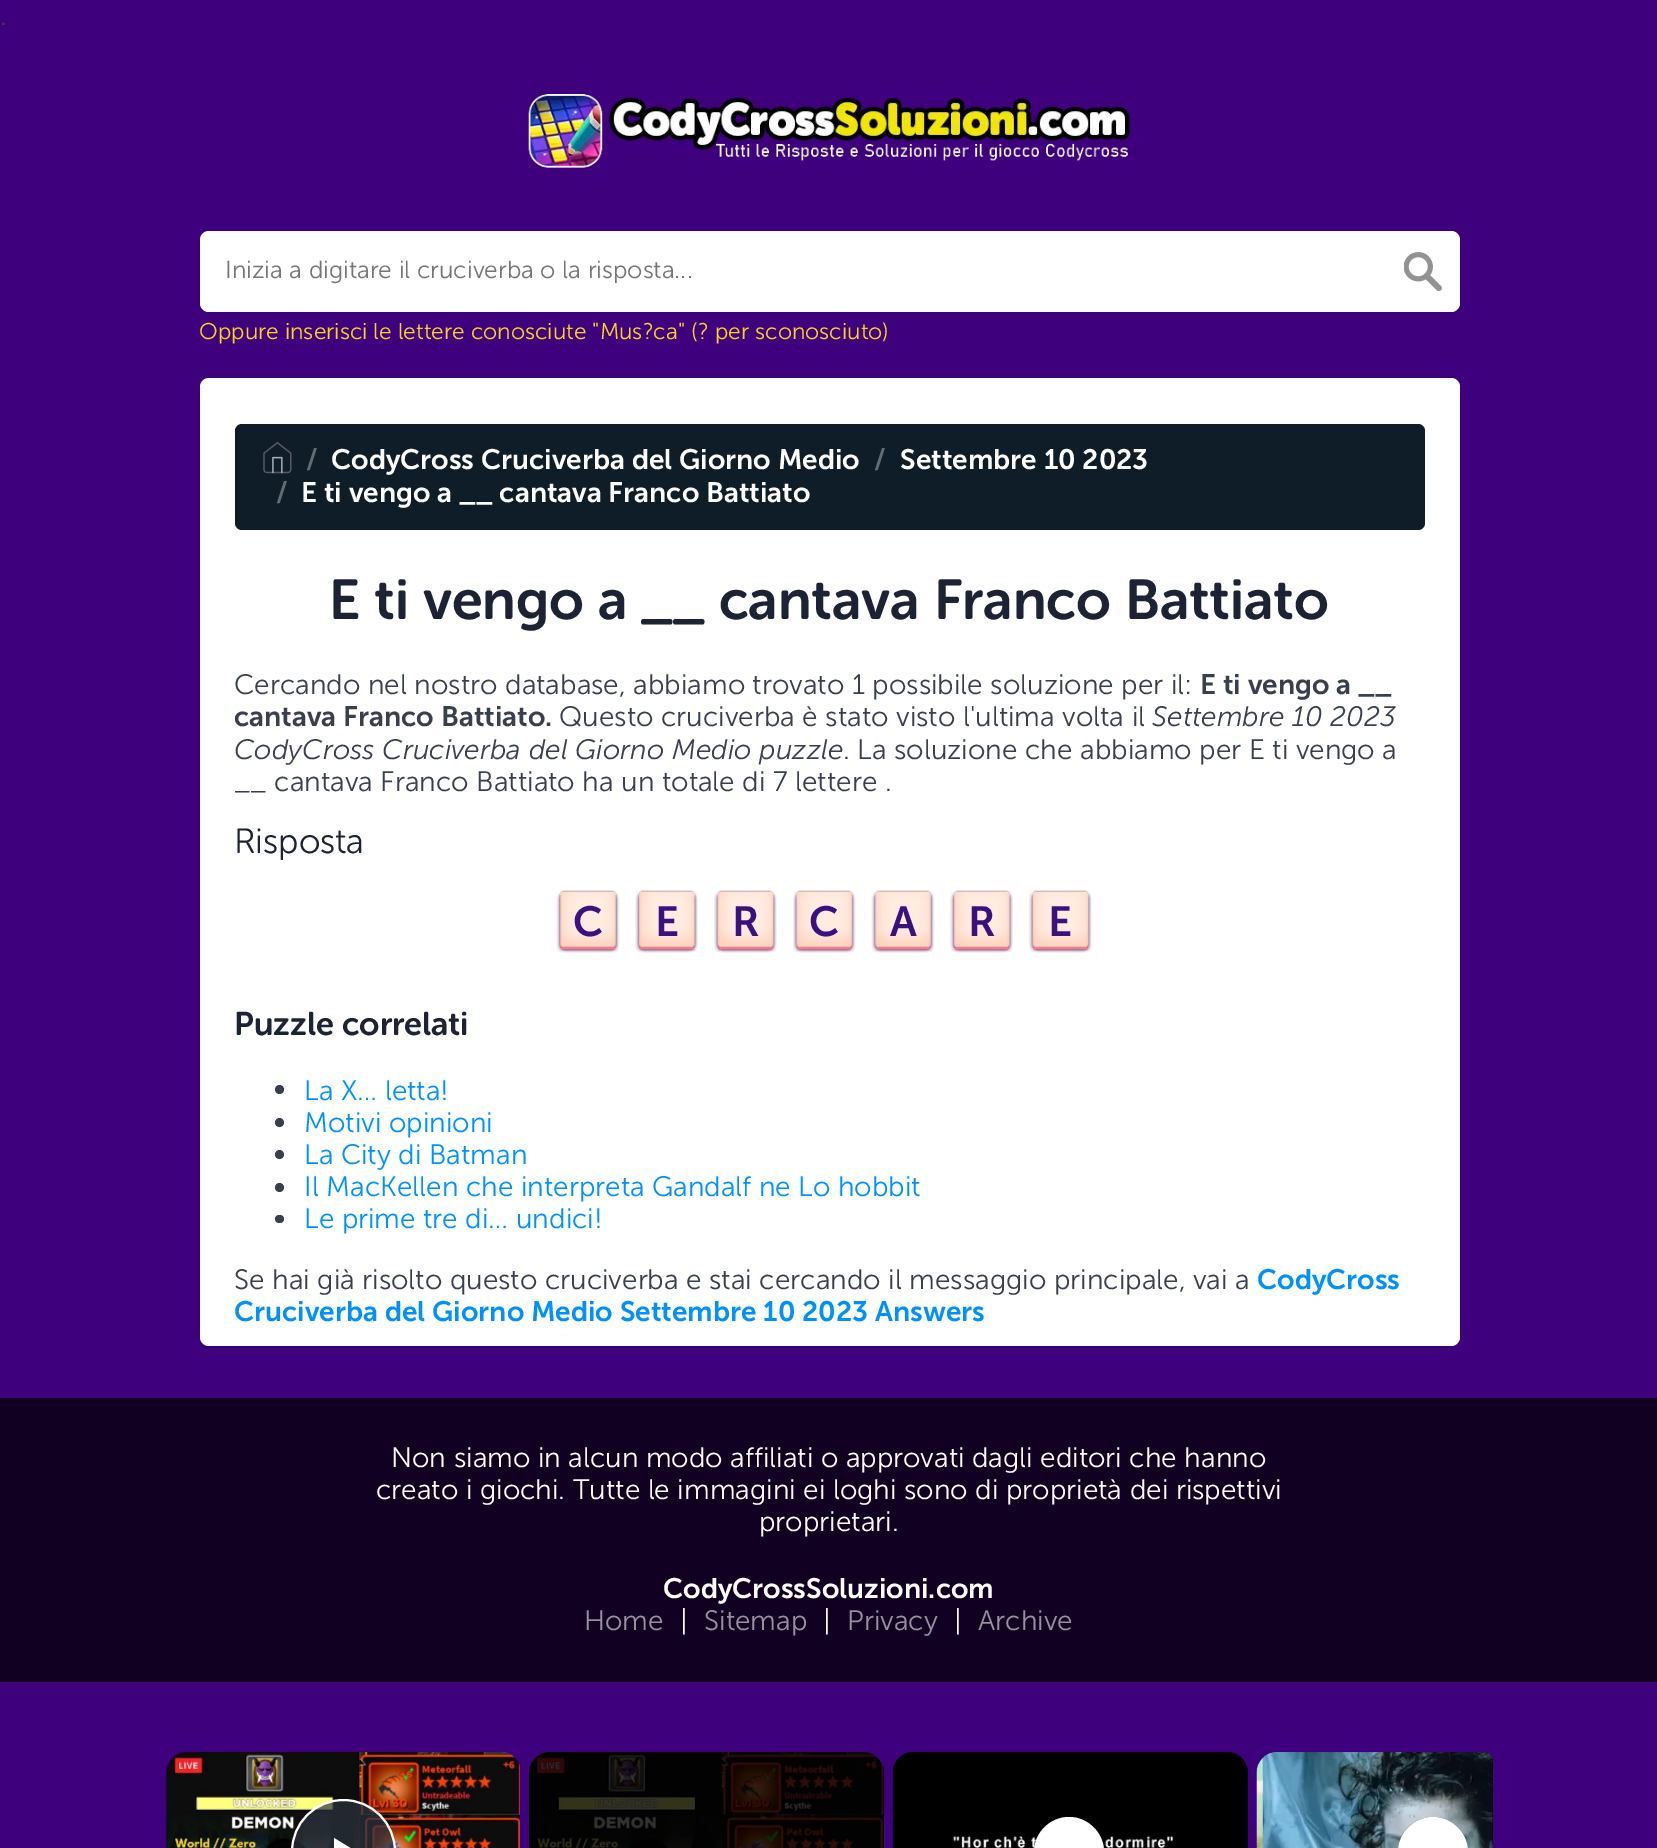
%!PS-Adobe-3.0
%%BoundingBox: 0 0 1657 1848
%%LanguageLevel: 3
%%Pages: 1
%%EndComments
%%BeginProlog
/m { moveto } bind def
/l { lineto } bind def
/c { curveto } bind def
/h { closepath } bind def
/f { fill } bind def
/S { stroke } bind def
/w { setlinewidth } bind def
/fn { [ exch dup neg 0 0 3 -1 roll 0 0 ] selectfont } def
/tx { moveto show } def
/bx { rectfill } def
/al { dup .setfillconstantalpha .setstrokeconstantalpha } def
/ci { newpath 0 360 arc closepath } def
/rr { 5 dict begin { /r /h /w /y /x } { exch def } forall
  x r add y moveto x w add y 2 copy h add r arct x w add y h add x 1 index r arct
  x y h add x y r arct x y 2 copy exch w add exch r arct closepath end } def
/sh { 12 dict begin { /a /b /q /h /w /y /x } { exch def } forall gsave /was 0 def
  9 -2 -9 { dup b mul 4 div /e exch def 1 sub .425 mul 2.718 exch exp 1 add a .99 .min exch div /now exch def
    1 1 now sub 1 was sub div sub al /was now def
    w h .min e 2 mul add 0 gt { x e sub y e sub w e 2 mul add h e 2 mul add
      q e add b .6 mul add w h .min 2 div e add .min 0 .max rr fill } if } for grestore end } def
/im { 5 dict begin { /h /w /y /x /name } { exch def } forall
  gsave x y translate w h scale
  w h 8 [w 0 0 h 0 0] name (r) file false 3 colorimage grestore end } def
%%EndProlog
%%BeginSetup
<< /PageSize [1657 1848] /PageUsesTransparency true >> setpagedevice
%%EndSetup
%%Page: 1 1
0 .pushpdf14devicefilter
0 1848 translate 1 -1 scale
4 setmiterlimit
0.247 0 0.49 setrgbcolor
0 0 1657 1848 bx
/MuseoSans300-Light 28 fn
0.22 0.247 0.306 setrgbcolor
(.) 0 25 tx
(image0.raw) 528 94 602 74 im
0 setgray
200 233 1260 80 9 3.5 0.1 sh
1 setgray
200 231 1260 81 9 rr f
/MuseoSans300-Light 24.5 fn
0.459 setgray
(Inizia a digitare il cruciverba o la risposta...) 225 278 tx
(image1.raw) 1404 252 38 39 im
/MuseoSans300-Light 22.75 fn
0.996 0.824 0.137 setrgbcolor
(Oppure inserisci le lettere conosciute "Mus?ca" \(? per sconosciuto\)) 199 339 tx
0 setgray
200 380 1260 968 9 3.5 0.1 sh
1 setgray
200 378 1260 968 9 rr f
0.059 0.114 0.157 setrgbcolor
235 424 1190 106 7 rr f
(image2.raw) 263 442 29 32 im
/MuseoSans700-SemiBold 28 fn
0.388 0.424 0.447 setrgbcolor
(/) 306 469 tx
1 setgray
(CodyCross Cruciverba del Giorno Medio) 331 469 tx
0.388 0.424 0.447 setrgbcolor
(/) 874 469 tx
1 setgray
(Settembre 10 2023) 900 469 tx
0.388 0.424 0.447 setrgbcolor
(/) 276 502 tx
1 setgray
(E ti vengo a __ cantava Franco Battiato) 301 502 tx
/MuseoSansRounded-SemiBold 56 fn
0.11 0.137 0.204 setrgbcolor
(E ti vengo a __ cantava Franco Battiato) 329 619 tx
/MuseoSans300-Light 28 fn
0.22 0.247 0.306 setrgbcolor
(Cercando nel nostro database, abbiamo trovato 1 possibile soluzione per il:) 234 694 tx
/MuseoSans700-SemiBold 28 fn
(E ti vengo a __) 1200 694 tx
(cantava Franco Battiato.) 234 726 tx
/MuseoSans300-Light 28 fn
(Questo cruciverba è stato visto l'ultima volta il) 559 726 tx
/MuseoSans300-LightItalic 28 fn
(Settembre 10 2023) 1152 726 tx
(CodyCross Cruciverba del Giorno Medio puzzle) 234 759 tx
/MuseoSans300-Light 28 fn
(. La soluzione che abbiamo per E ti vengo a) 843 759 tx
(__ cantava Franco Battiato ha un totale di 7 lettere .) 234 791 tx
/MuseoSansRounded-Light 35 fn
0.11 0.137 0.204 setrgbcolor
(Risposta) 234 853 tx
(image3.raw) 556 890 64 63 im
/MuseoSans700-SemiBold 42 fn
0.239 0.063 0.502 setrgbcolor
(C) 573 936 tx
(image4.raw) 635 890 63 63 im
(E) 655 936 tx
(image5.raw) 714 890 63 63 im
(R) 732 936 tx
(image6.raw) 793 890 63 63 im
(C) 809 936 tx
(image3.raw) 871 890 64 63 im
(A) 890 936 tx
(image4.raw) 950 890 63 63 im
(R) 968 936 tx
(image5.raw) 1029 890 63 63 im
(E) 1048 936 tx
/MuseoSansRounded-SemiBold 32.75 fn
0.11 0.137 0.204 setrgbcolor
(Puzzle correlati) 234 1035 tx
0.22 0.247 0.306 setrgbcolor
279.5 1089.5 4.5 ci f
/MuseoSans300-Light 28 fn
0 0.569 1 setrgbcolor
(La X… letta!) 304 1100 tx
0.22 0.247 0.306 setrgbcolor
279.5 1122.5 4.5 ci f
0 0.569 1 setrgbcolor
(Motivi opinioni) 304 1132 tx
0.22 0.247 0.306 setrgbcolor
279.5 1154.5 4.5 ci f
0 0.569 1 setrgbcolor
(La City di Batman) 304 1164 tx
0.22 0.247 0.306 setrgbcolor
279.5 1187.5 4.5 ci f
0 0.569 1 setrgbcolor
(Il MacKellen che interpreta Gandalf ne Lo hobbit) 304 1196 tx
0.22 0.247 0.306 setrgbcolor
275 1215 9 8 4 rr f
0 0.569 1 setrgbcolor
(Le prime tre di… undici!) 304 1228 tx
0.22 0.247 0.306 setrgbcolor
(Se hai già risolto questo cruciverba e stai cercando il messaggio principale, vai a) 234 1289 tx
/MuseoSans700-SemiBold 28 fn
0 0.569 1 setrgbcolor
(CodyCross) 1257 1289 tx
(Cruciverba del Giorno Medio Settembre 10 2023 Answers) 234 1321 tx
0.071 0 0.137 setrgbcolor
0 1398 1657 284 bx
/MuseoSans300-Light 28 fn
1 setgray
(Non siamo in alcun modo affiliati o approvati dagli editori che hanno) 391 1467 tx
(creato i giochi. Tutte le immagini ei loghi sono di proprietà dei rispettivi) 376 1499 tx
(proprietari.) 759 1531 tx
/MuseoSans700-SemiBold 28 fn
(CodyCrossSoluzioni.com) 663 1598 tx
/MuseoSans300-Light 28 fn
0.596 0.565 0.624 setrgbcolor
(Home) 584 1630 tx
1 setgray
(|) 680 1630 tx
0.596 0.565 0.624 setrgbcolor
(Sitemap) 704 1630 tx
1 setgray
(|) 823 1630 tx
0.596 0.565 0.624 setrgbcolor
(Privacy) 847 1630 tx
1 setgray
(|) 954 1630 tx
0.596 0.565 0.624 setrgbcolor
(Archive) 978 1630 tx
(image7.raw) 166 1752 354 96 im
0.7 al
0.169 0.2 0.247 setrgbcolor
292 1800 103 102 51.5 rr f
1 al
1 setgray
2 w
292 1800 103 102 51.5 rr S
334 1838 m 334 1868.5 l 358.5 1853 l h f
0 setgray
529 1752 355 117 21 rr f
(image8.raw) 529 1752 355 96 im
893 1752 355 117 21 rr f
(image9.raw) 892 1752 356 96 im
0.7 al
0.169 0.2 0.247 setrgbcolor
1034 1817 70 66 35 rr f
1 al
1 setgray
1069 1817 m 1050 1817 1034 1833 1034 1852 c 1034 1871 1050 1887 1069 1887 c 1088 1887 1104 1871 1104 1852 c 1104 1833 1088 1817 1069 1817 c h f
0 setgray
1278 1752 m 1484 1752 l 1489 1752 1493 1756 1493 1761 c 1493 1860 l 1493 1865 1489 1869 1484 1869 c 1278 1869 l 1266.5 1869 1257 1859.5 1257 1848 c 1257 1773 l 1257 1761.5 1266.5 1752 1278 1752 c h f
(image10.raw) 1256 1752 237 96 im
0.7 al
0.169 0.2 0.247 setrgbcolor
1398 1817 70 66 35 rr f
1 al
1 setgray
1433 1817 m 1414 1817 1398 1833 1398 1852 c 1398 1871 1414 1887 1433 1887 c 1452 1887 1468 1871 1468 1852 c 1468 1833 1452 1817 1433 1817 c h f
.poppdf14devicefilter showpage
%%EOF
